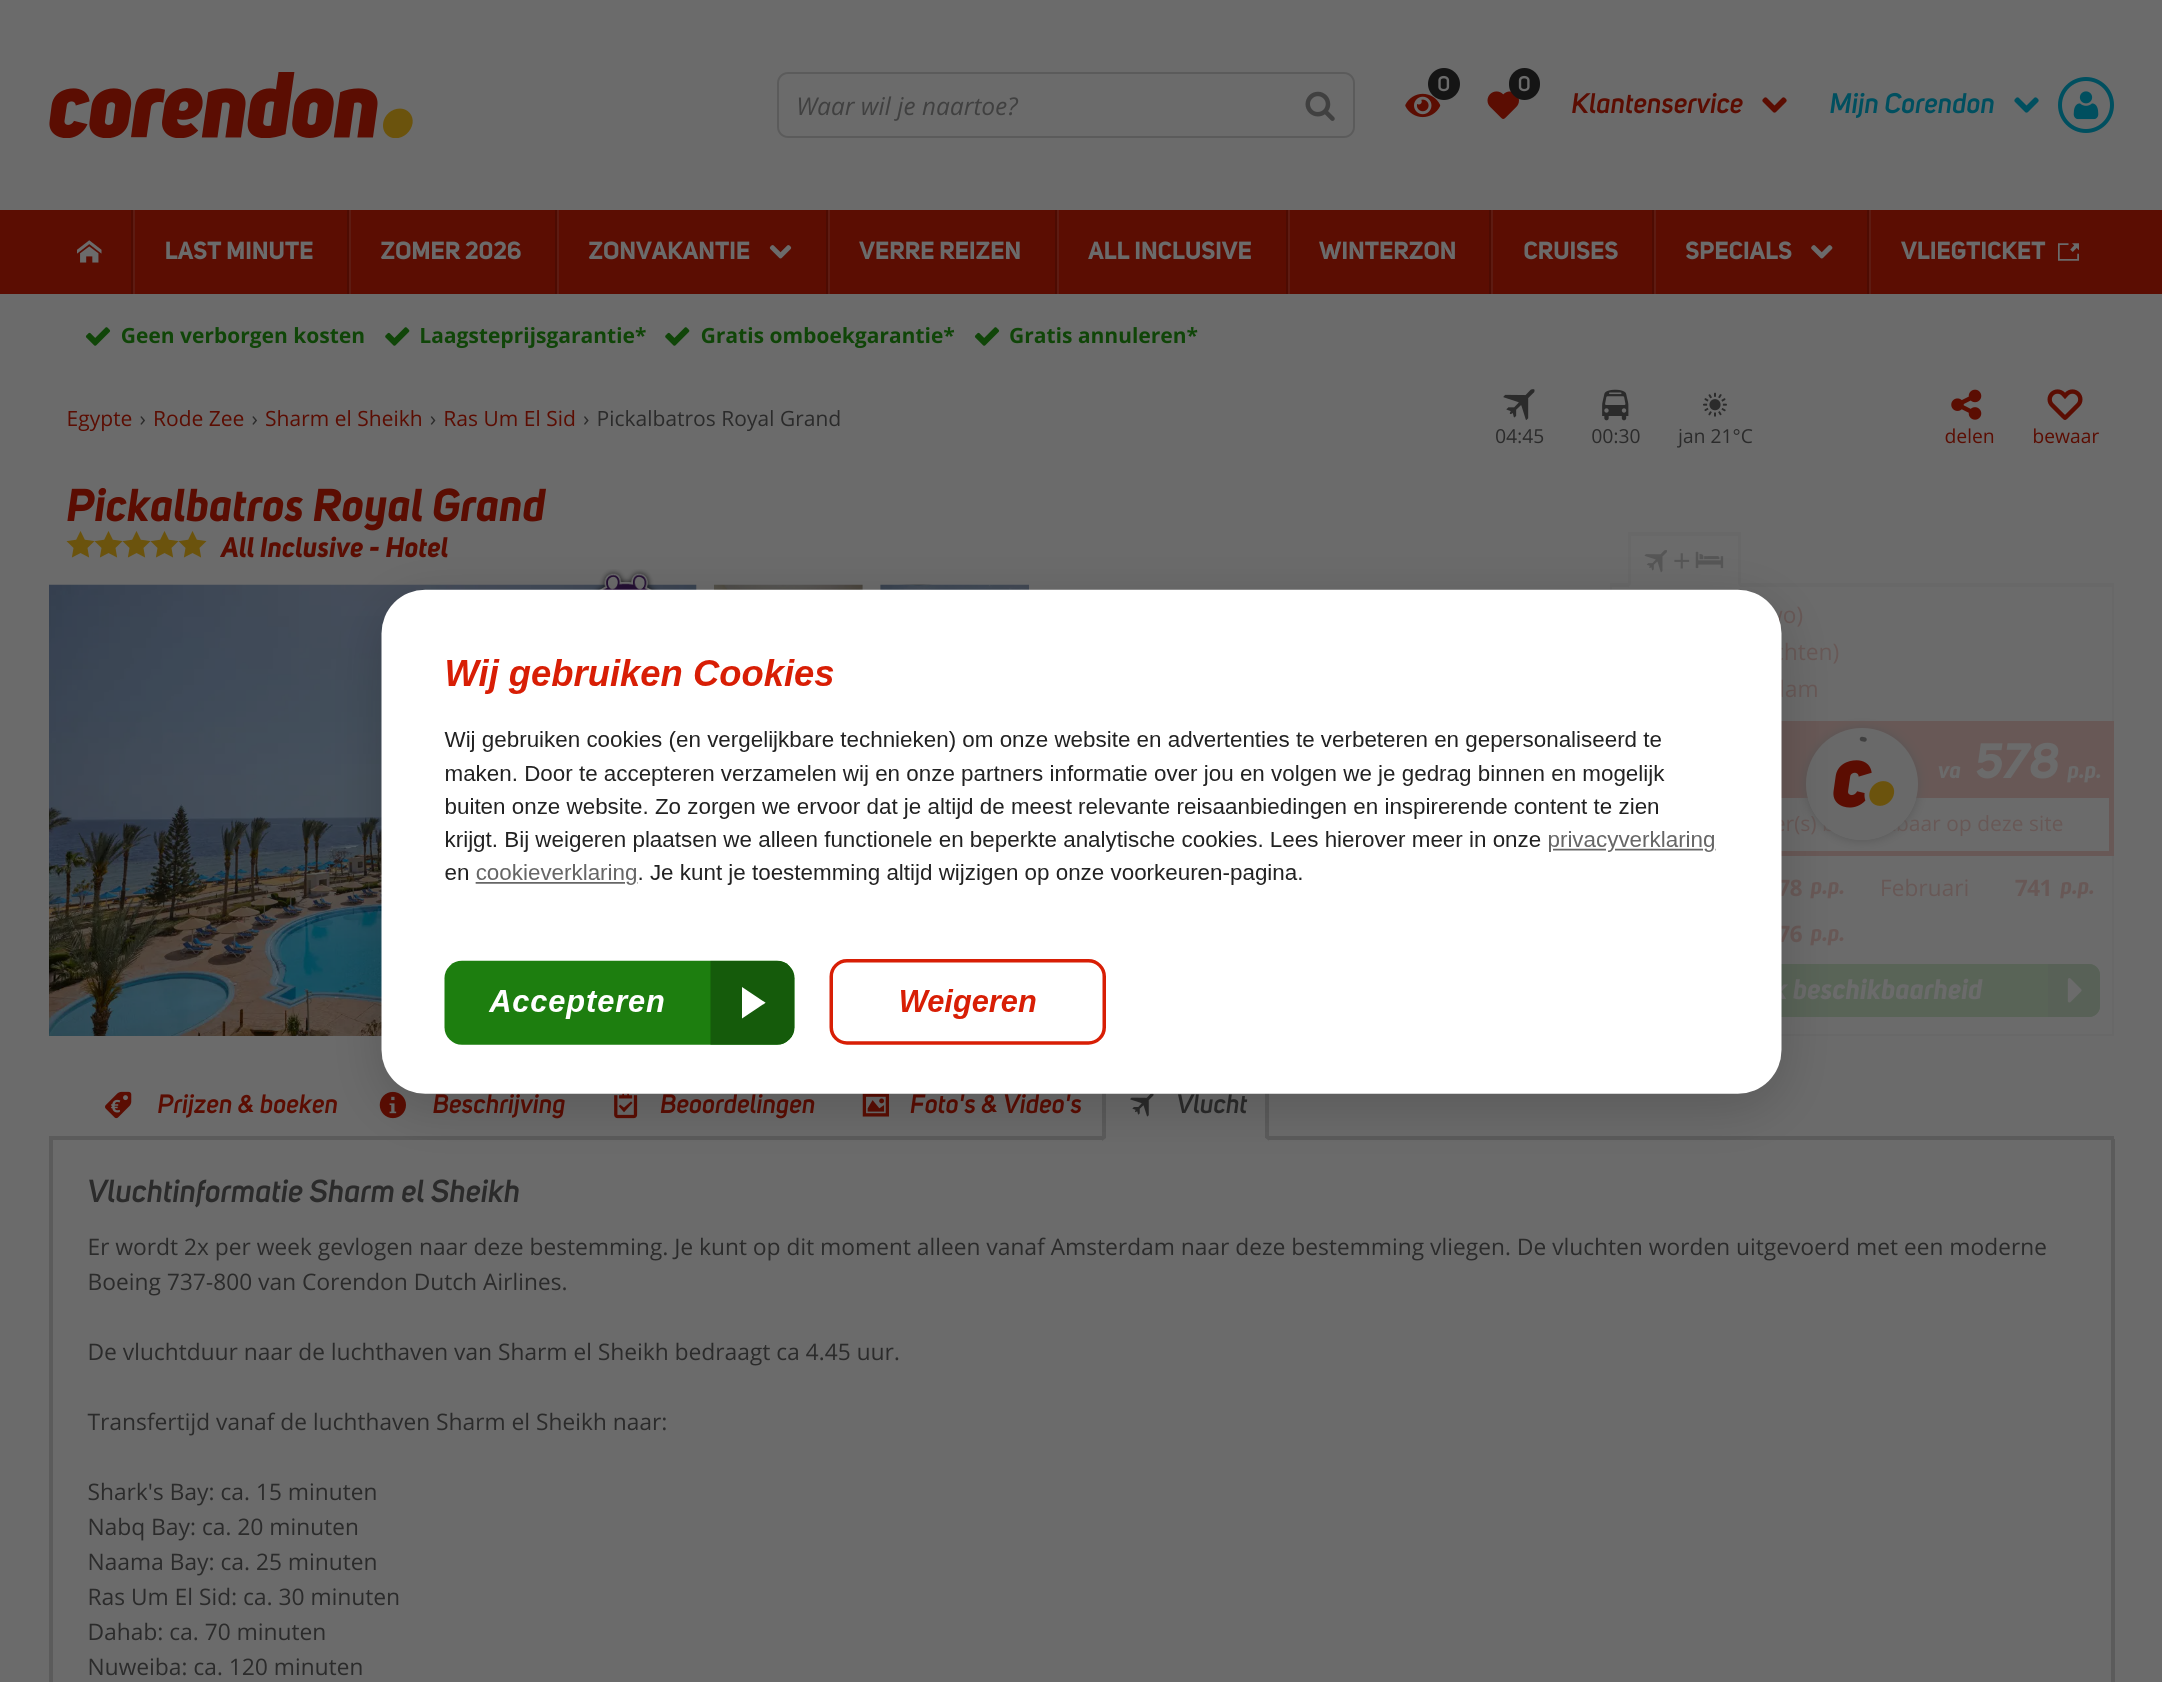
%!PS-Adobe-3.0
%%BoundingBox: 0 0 2162 1682
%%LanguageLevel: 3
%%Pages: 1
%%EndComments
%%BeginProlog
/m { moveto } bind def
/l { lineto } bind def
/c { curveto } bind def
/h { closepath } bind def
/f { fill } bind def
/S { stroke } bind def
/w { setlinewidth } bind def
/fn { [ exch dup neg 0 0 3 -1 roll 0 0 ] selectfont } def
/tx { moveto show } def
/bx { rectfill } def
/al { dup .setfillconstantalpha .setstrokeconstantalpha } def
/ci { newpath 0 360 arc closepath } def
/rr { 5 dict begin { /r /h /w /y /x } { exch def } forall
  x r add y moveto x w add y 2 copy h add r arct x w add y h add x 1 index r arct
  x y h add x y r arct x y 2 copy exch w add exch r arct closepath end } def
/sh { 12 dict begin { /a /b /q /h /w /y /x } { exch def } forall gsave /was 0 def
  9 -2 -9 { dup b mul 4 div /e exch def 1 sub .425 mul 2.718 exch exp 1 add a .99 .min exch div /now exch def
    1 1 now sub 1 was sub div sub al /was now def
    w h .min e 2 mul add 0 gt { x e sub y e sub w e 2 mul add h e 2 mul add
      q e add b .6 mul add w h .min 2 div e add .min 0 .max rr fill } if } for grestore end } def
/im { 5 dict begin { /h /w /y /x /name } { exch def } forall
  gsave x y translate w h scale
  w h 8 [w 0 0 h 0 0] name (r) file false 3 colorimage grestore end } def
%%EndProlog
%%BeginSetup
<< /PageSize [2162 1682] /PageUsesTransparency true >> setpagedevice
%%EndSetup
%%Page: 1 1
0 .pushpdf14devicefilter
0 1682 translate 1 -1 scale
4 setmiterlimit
0.702 setgray
0 0 2162 1682 bx
(image1.raw) 49 72 364 66 im
(image2.raw) 1405 93 36 25 im
0.141 setgray
1444 84 16 ci f
/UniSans-SemiBold 21 fn
0.702 setgray
1437 91 m -2 0 (0) ashow
(image3.raw) 1487 91 32 28 im
0.141 setgray
1509 68 31 32 15.5 rr f
0.702 setgray
1518 91 m -2 0 (0) ashow
0.596 setgray
2 w
778 73 576 64 10 rr S
/OpenSans-Italic 24.5 fn
0.42 setgray
(Waar wil je naartoe?) 796 115 tx
(image4.raw) 1305 91 30 30 im
/UniSans-SemiBoldItalic 28 fn
0.592 0.082 0.016 setrgbcolor
(Klantenservice) 1571 113 tx
(image5.raw) 1762 97 25 16 im
0 0.518 0.62 setrgbcolor
(Mijn Corendon) 1830 113 tx
(image6.raw) 2014 97 25 16 im
4 w
2086 105 26 ci S
(image7.raw) 2073 91 26 29 im
0.592 0.082 0.016 setrgbcolor
0 210 2162 84 bx
(image8.raw) 77 240 25 23 im
0.608 0.176 0.118 setrgbcolor
133 210 2 84 bx
0.506 0.071 0.012 setrgbcolor
131 210 2 84 bx
/UniSans-Bold 24.5 fn
0.702 setgray
(LAST MINUTE) 165 259 tx
0.608 0.176 0.118 setrgbcolor
349 210 2 84 bx
0.506 0.071 0.012 setrgbcolor
347 210 2 84 bx
0.702 setgray
(ZOMER 2026) 381 259 tx
0.608 0.176 0.118 setrgbcolor
557 210 2 84 bx
0.506 0.071 0.012 setrgbcolor
555 210 2 84 bx
0.702 setgray
(ZONVAKANTIE) 588 259 tx
(image9.raw) 769 245 23 14 im
0.608 0.176 0.118 setrgbcolor
828 210 2 84 bx
0.506 0.071 0.012 setrgbcolor
826 210 2 84 bx
0.702 setgray
(VERRE REIZEN) 859 259 tx
0.608 0.176 0.118 setrgbcolor
1057 210 2 84 bx
0.506 0.071 0.012 setrgbcolor
1055 210 2 84 bx
0.702 setgray
(ALL INCLUSIVE) 1088 259 tx
0.608 0.176 0.118 setrgbcolor
1288 210 2 84 bx
0.506 0.071 0.012 setrgbcolor
1286 210 2 84 bx
0.702 setgray
(WINTERZON) 1319 259 tx
0.608 0.176 0.118 setrgbcolor
1491 210 2 84 bx
0.506 0.071 0.012 setrgbcolor
1489 210 2 84 bx
0.702 setgray
(CRUISES) 1523 259 tx
0.608 0.176 0.118 setrgbcolor
1654 210 2 84 bx
0.506 0.071 0.012 setrgbcolor
1652 210 2 84 bx
0.702 setgray
(SPECIALS) 1685 259 tx
(image10.raw) 1811 245 22 14 im
0.608 0.176 0.118 setrgbcolor
1869 210 2 84 bx
0.506 0.071 0.012 setrgbcolor
1867 210 2 84 bx
0.702 setgray
(VLIEGTICKET) 1901 259 tx
(image11.raw) 2058 243 21 18 im
(image12.raw) 85 327 26 19 im
/OpenSans-Bold 21 fn
0.106 0.451 0.055 setrgbcolor
(Geen verborgen kosten) 121 343 tx
(image13.raw) 385 327 25 19 im
(Laagsteprijsgarantie*) 419 343 tx
(image13.raw) 665 327 25 19 im
(Gratis omboekgarantie*) 701 343 tx
(image12.raw) 974 327 26 19 im
(Gratis annuleren*) 1009 343 tx
/OpenSans-Regular 21 fn
0.592 0.082 0.016 setrgbcolor
(Egypte) 67 426 tx
0.278 setgray
(›) 139 426 tx
0.592 0.082 0.016 setrgbcolor
(Rode Zee) 153 426 tx
0.278 setgray
(›) 251 426 tx
0.592 0.082 0.016 setrgbcolor
(Sharm el Sheikh) 265 426 tx
0.278 setgray
(›) 430 426 tx
0.592 0.082 0.016 setrgbcolor
(Ras Um El Sid) 443 426 tx
0.278 setgray
(›) 583 426 tx
(Pickalbatros Royal Grand) 597 426 tx
(image14.raw) 1503 389 32 31 im
/OpenSans-Regular 19 fn
(04:45) 1495 443 tx
(image15.raw) 1602 389 27 32 im
(00:30) 1591 443 tx
(image16.raw) 1703 392 24 25 im
(jan 21°C) 1678 443 tx
(image17.raw) 1951 389 31 31 im
0.592 0.082 0.016 setrgbcolor
(delen) 1945 443 tx
(image18.raw) 2047 389 36 31 im
(bewaar) 2032 443 tx
/UniSans-BoldItalic 45.5 fn
(Pickalbatros Royal Grand) 67 521 tx
(image19.raw) 66 531 141 27 im
/UniSans-BoldItalic 28 fn
(All Inclusive - Hotel) 221 557 tx
0.686 setgray
696 585 1 5 bx
(image21.raw) 49 584 648 452 im
(image20.raw) 592 569 68 21 im
(image22.raw) 714 584 149 6 im
(image23.raw) 880 584 149 6 im
0.678 setgray
2112 583 2 138 bx
1610 583 2 7 bx
1610 583 504 4 bx
0.702 setgray
1628 583 113 4 bx
0.678 setgray
1628 532 113 4 bx
1741 532 m 1741 588 l 1738 584 l 1738 536 l h f
1628 588 m 1628 532 l 1631 536 l 1631 584 l h f
(image24.raw) 1644 550 23 23 im
/OpenSans-Regular 31.5 fn
0.561 setgray
(+) 1673 572 tx
(image25.raw) 1695 551 29 18 im
/OpenSans-Regular 22.75 fn
0.678 0.576 0.565 setrgbcolor
(o\)) 1783 623 tx
(hten\)) 1784 660 tx
(am) 1785 697 tx
1781 721 333 72 bx
5 w
1612.5 795.5 499 58 rectstroke
0.561 setgray
1806 728 112 112 56 5.5 1 sh
/OpenSans-Regular 21 fn
0.678 0.576 0.565 setrgbcolor
(r\(s\)) 1786 831 tx
(aar op deze site) 1909 831 tx
0.686 setgray
1862 784 56 ci f
0.42 setgray
4.5 w
1 setlinecap
1862 739 m 1864.5 739.5 l S
(image26.raw) 1833 760 62 48 im
/UniSans-BoldItalic 22.75 fn
0.702 setgray
(va) 1938 778 tx
/UniSans-BoldItalic 49 fn
(578) 1976 778 tx
/UniSans-BoldItalic 22.75 fn
(p.p.) 2067 778 tx
0.678 setgray
2112 856 2 180 bx
/OpenSans-Bold 22.75 fn
0.678 0.576 0.565 setrgbcolor
1777 896 m -1 0 (78) ashow
/UniSans-BoldItalic 22.75 fn
(p.p.) 1811 894 tx
/OpenSans-Regular 22.75 fn
(Februari) 1880 896 tx
/OpenSans-Bold 22.75 fn
2015 896 m -1 0 (741) ashow
/UniSans-BoldItalic 22.75 fn
(p.p.) 2060 894 tx
/OpenSans-Bold 22.75 fn
1777 942 m -1 0 (76) ashow
/UniSans-BoldItalic 22.75 fn
(p.p.) 1811 941 tx
0.678 setgray
1781 1034 333 2 bx
0.58 0.651 0.573 setrgbcolor
1624 964 476 53 11 rr f
/UniSans-BoldItalic 28 fn
0.702 setgray
(beschikbaarheid) 1793 999 tx
0.576 0.635 0.569 setrgbcolor
2048 964 m 2089 964 l 2095 964 2100 969 2100 975 c 2100 1006 l 2100 1012 2095 1017 2089 1017 c 2048 1017 l h f
(image27.raw) 2067 978 15 25 im
0.596 setgray
49 1136 2065 4 bx
(image28.raw) 105 1091 27 28 im
/UniSans-SemiBoldItalic 26.25 fn
0.592 0.082 0.016 setrgbcolor
(Prijzen & boeken) 158 1113 tx
(image29.raw) 379 1091 27 28 im
(Beschrijving) 433 1113 tx
(image30.raw) 614 1093 24 26 im
(Beoordelingen) 660 1113 tx
(image31.raw) 862 1093 27 24 im
(Foto's & Video's) 910 1113 tx
0.702 setgray
1103 1136 166 4 bx
0.596 setgray
1269 1071 m 1269 1141 l 1265 1138 l 1265 1074 l h f
0.702 setgray
1269 1141 m 1102 1141 l 1106 1138 l 1265 1138 l h f
0.596 setgray
1102 1141 m 1102 1071 l 1106 1074 l 1106 1138 l h f
(image32.raw) 1130 1093 24 24 im
0.278 setgray
(Vlucht) 1177 1113 tx
0.596 setgray
2111 1139 4 543 bx
49 1139 4 543 bx
/UniSans-SemiBoldItalic 31.5 fn
0.278 setgray
(Vluchtinformatie Sharm el Sheikh) 88 1202 tx
/OpenSans-Regular 22.75 fn
(Er wordt 2x per week gevlogen naar deze bestemming. Je kunt op dit moment alleen vanaf Amsterdam naar deze bestemming vliegen. De vluchten worden uitgevoerd met een moderne) 88 1255 tx
(Boeing 737-800 van Corendon Dutch Airlines.) 88 1290 tx
(De vluchtduur naar de luchthaven van Sharm el Sheikh bedraagt ca 4.45 uur.) 88 1360 tx
(Transfertijd vanaf de luchthaven Sharm el Sheikh naar:) 88 1430 tx
(Shark's Bay: ca. 15 minuten) 88 1500 tx
(Nabq Bay: ca. 20 minuten) 88 1535 tx
(Naama Bay: ca. 25 minuten) 88 1570 tx
(Ras Um El Sid: ca. 30 minuten) 88 1605 tx
(Dahab: ca. 70 minuten) 88 1640 tx
(Nuweiba: ca. 120 minuten) 88 1675 tx
(image0.raw) 0 0 2162 1682 im
.poppdf14devicefilter showpage
%%EOF
